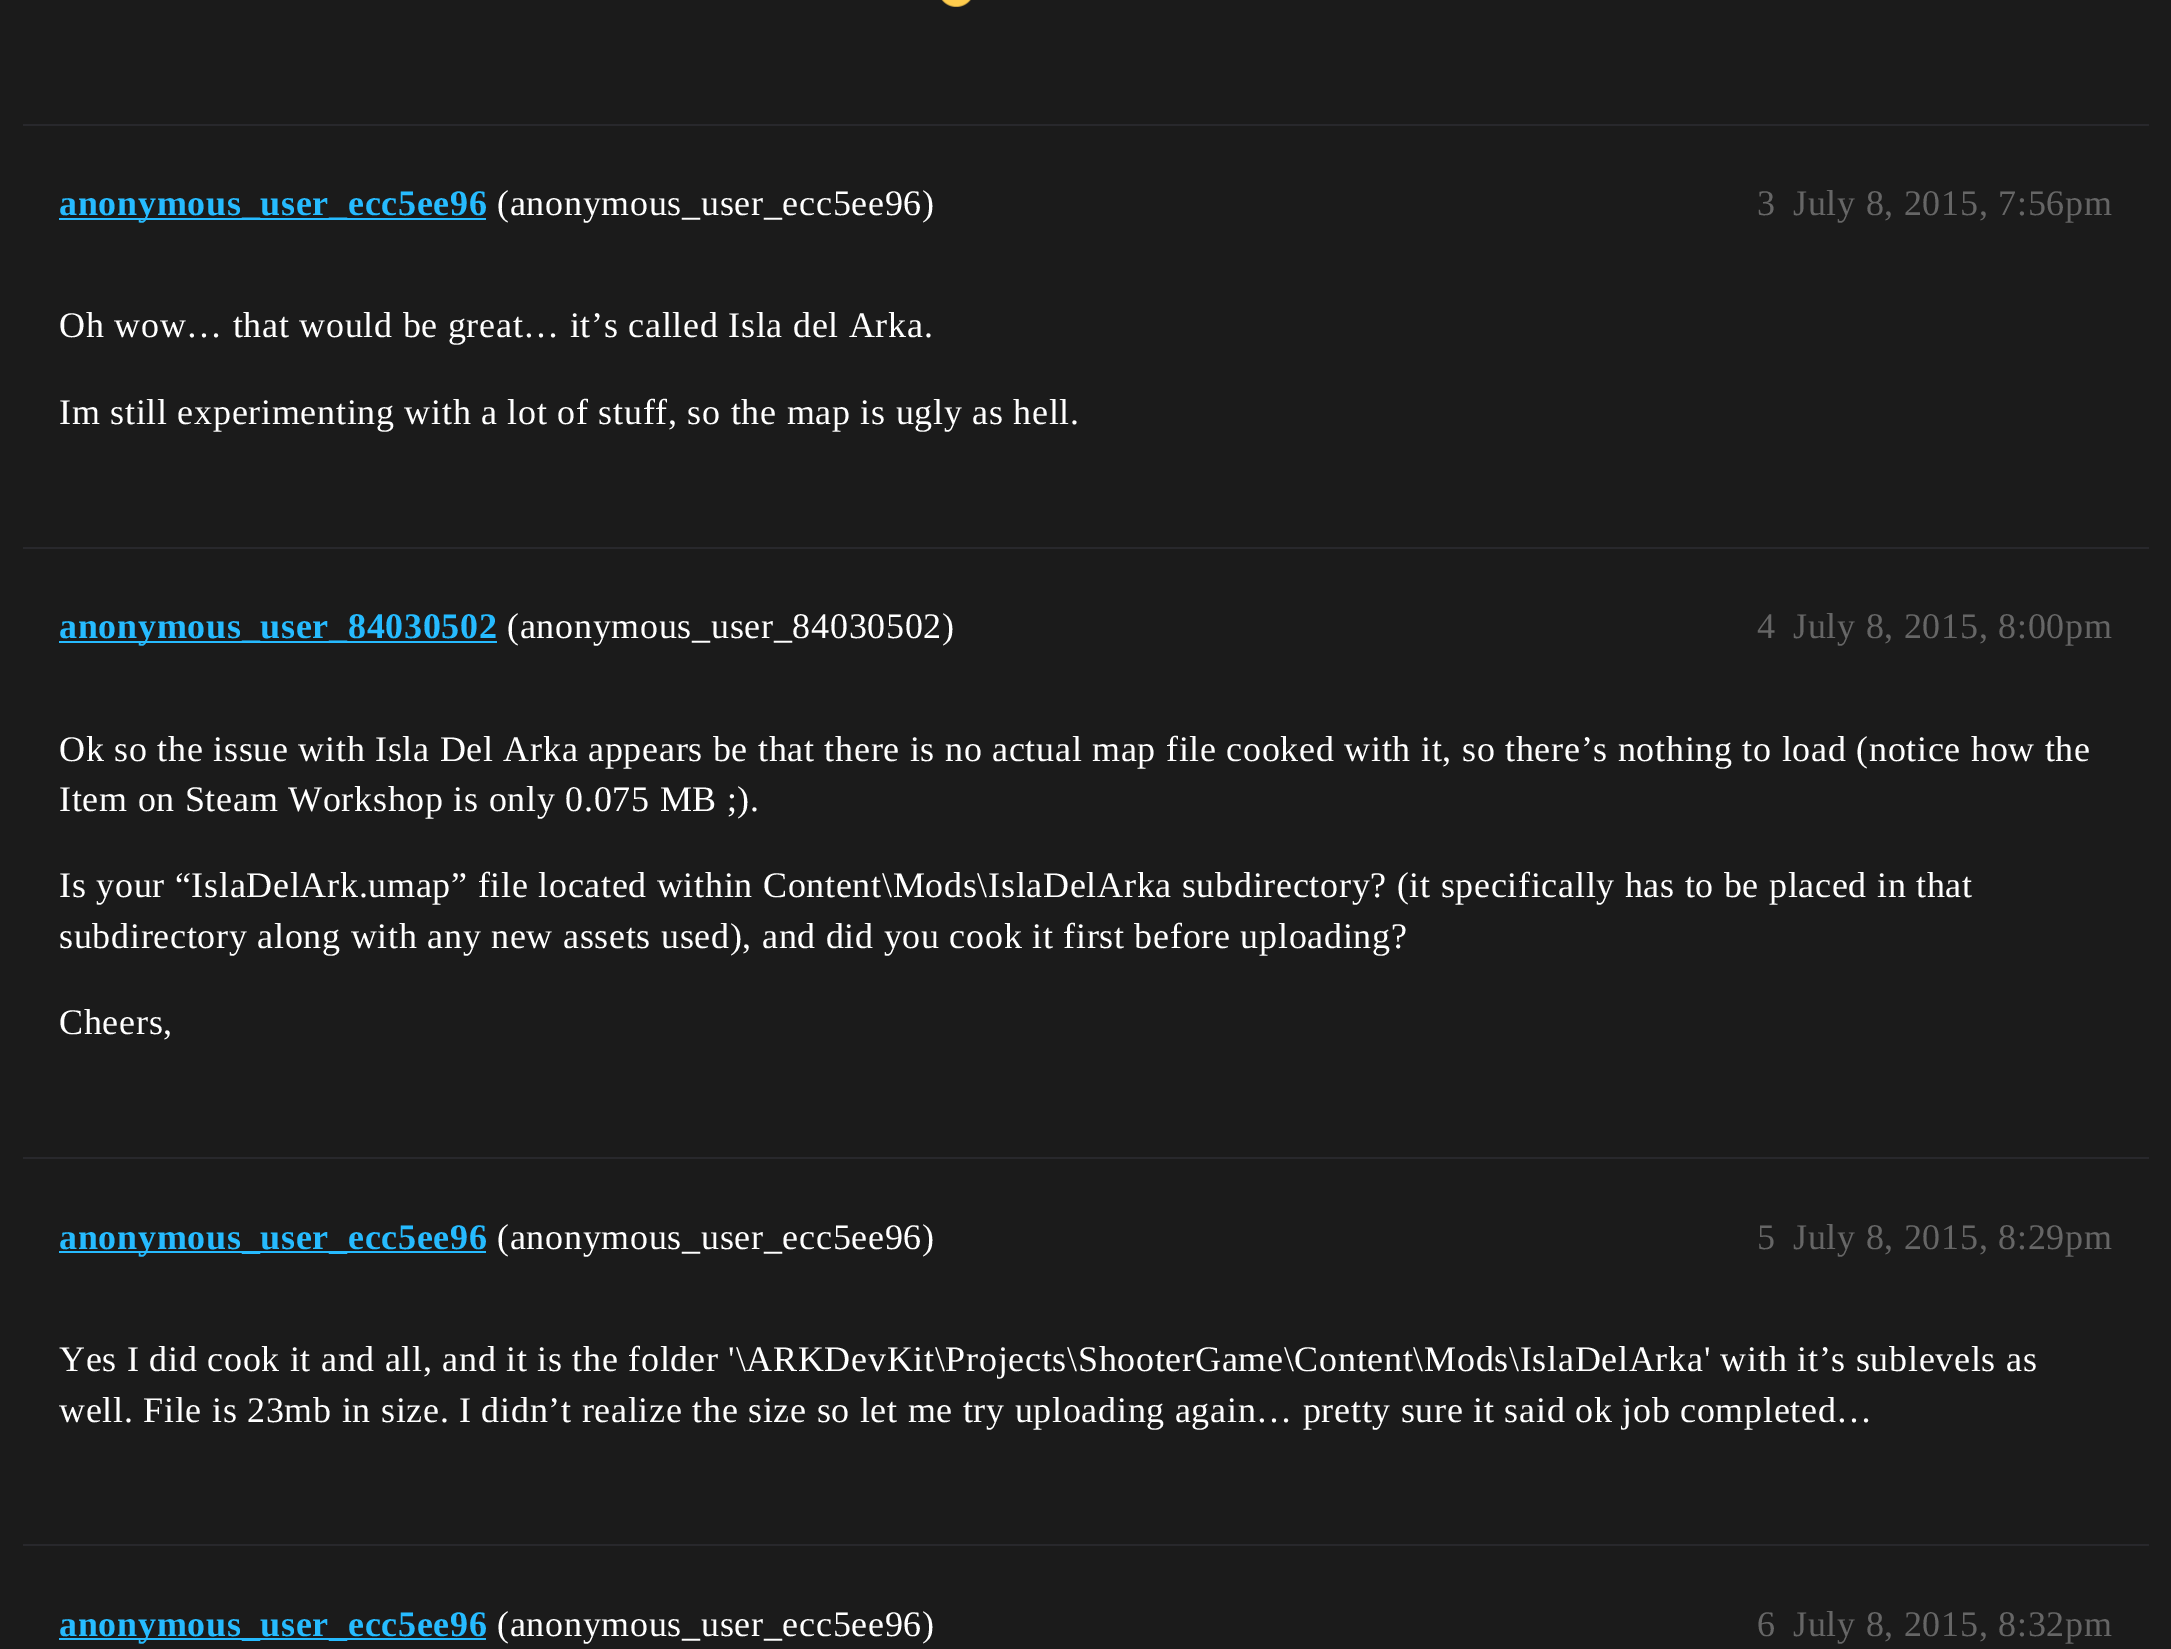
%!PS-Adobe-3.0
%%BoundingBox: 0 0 2171 1649
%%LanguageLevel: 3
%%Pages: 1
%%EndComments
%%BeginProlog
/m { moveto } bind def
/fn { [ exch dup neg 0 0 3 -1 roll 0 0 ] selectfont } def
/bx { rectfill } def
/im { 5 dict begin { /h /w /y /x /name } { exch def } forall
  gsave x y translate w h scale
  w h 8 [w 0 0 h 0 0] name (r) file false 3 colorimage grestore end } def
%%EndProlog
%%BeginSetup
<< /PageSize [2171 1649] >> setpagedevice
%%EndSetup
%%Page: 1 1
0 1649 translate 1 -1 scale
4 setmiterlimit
0.106 setgray
0 0 2171 1649 bx
(image0.raw) 941 0 30 7 im
0.157 0.157 0.173 setrgbcolor
23 124 2126 2 bx
0.149 0.733 1 setrgbcolor
59 218 427 2 bx
/LiberationSerif-Bold 36 fn
59 215 m 0.72 0 (anonymous_user_ecc5ee96) ashow
/LiberationSerif-Regular 36 fn
1 setgray
497 215 m 0.72 0 (\(anonymous_user_ecc5ee96\)) ashow
0.4 setgray
1757 215 m 0.72 0 (3) ashow
1793 215 m 0.72 0 (July 8, 2015, 7:56pm) ashow
1 setgray
59 337 m 0.72 0 (Oh wow… that would be great… it’s called Isla del Arka.) ashow
59 424 m 0.72 0 (Im still experimenting with a lot of stuff, so the map is ugly as hell.) ashow
0.157 0.157 0.173 setrgbcolor
23 547 2126 2 bx
0.149 0.733 1 setrgbcolor
59 641 438 2 bx
/LiberationSerif-Bold 36 fn
59 638 m 0.72 0 (anonymous_user_84030502) ashow
/LiberationSerif-Regular 36 fn
1 setgray
507 638 m 0.72 0 (\(anonymous_user_84030502\)) ashow
0.4 setgray
1757 638 m 0.72 0 (4) ashow
1793 638 m 0.72 0 (July 8, 2015, 8:00pm) ashow
1 setgray
59 761 m 0.72 0 (Ok so the issue with Isla Del Arka appears be that there is no actual map file cooked with it, so there’s nothing to load \(notice how the) ashow
59 811 m 0.72 0 (Item on Steam Workshop is only 0.075 MB ;\).) ashow
59 897 m 0.72 0 (Is your “IslaDelArk.umap” file located within Content\\Mods\\IslaDelArka subdirectory? \(it specifically has to be placed in that) ashow
59 948 m 0.72 0 (subdirectory along with any new assets used\), and did you cook it first before uploading?) ashow
59 1034 m 0.72 0 (Cheers,) ashow
0.157 0.157 0.173 setrgbcolor
23 1157 2126 2 bx
0.149 0.733 1 setrgbcolor
59 1251 427 2 bx
/LiberationSerif-Bold 36 fn
59 1249 m 0.72 0 (anonymous_user_ecc5ee96) ashow
/LiberationSerif-Regular 36 fn
1 setgray
497 1249 m 0.72 0 (\(anonymous_user_ecc5ee96\)) ashow
0.4 setgray
1757 1249 m 0.72 0 (5) ashow
1793 1249 m 0.72 0 (July 8, 2015, 8:29pm) ashow
1 setgray
59 1371 m 0.72 0 (Yes I did cook it and all, and it is the folder '\\ARKDevKit\\Projects\\ShooterGame\\Content\\Mods\\IslaDelArka' with it’s sublevels as) ashow
59 1422 m 0.72 0 (well. File is 23mb in size. I didn’t realize the size so let me try uploading again… pretty sure it said ok job completed…) ashow
0.157 0.157 0.173 setrgbcolor
23 1544 2126 2 bx
0.149 0.733 1 setrgbcolor
59 1638 427 2 bx
/LiberationSerif-Bold 36 fn
59 1636 m 0.72 0 (anonymous_user_ecc5ee96) ashow
/LiberationSerif-Regular 36 fn
1 setgray
497 1636 m 0.72 0 (\(anonymous_user_ecc5ee96\)) ashow
0.4 setgray
1757 1636 m 0.72 0 (6) ashow
1793 1636 m 0.72 0 (July 8, 2015, 8:32pm) ashow
showpage
%%EOF
